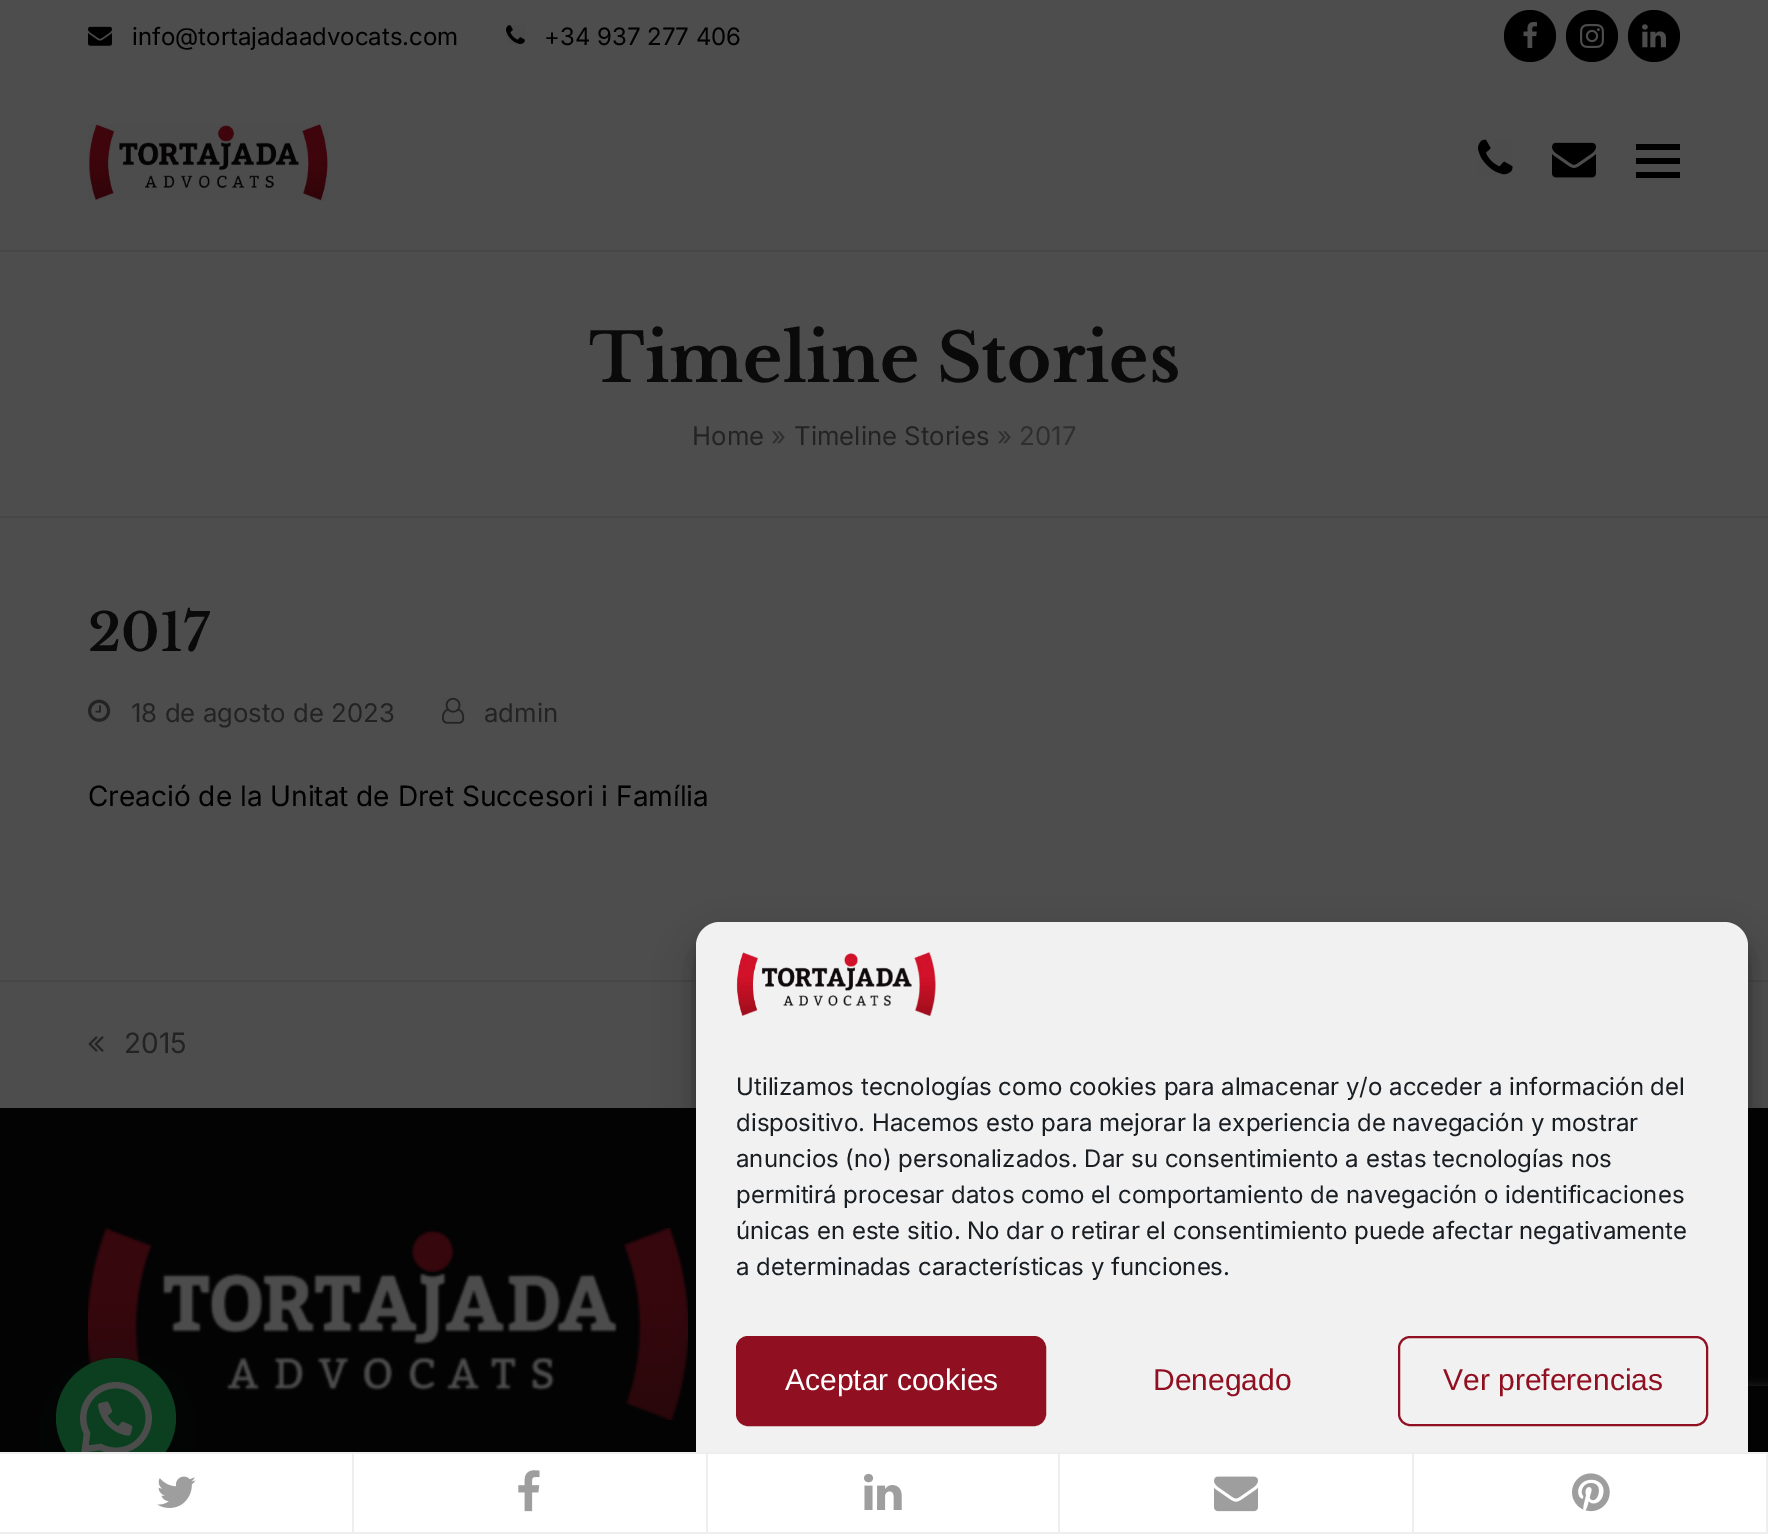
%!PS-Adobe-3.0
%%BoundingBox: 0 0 1768 1534
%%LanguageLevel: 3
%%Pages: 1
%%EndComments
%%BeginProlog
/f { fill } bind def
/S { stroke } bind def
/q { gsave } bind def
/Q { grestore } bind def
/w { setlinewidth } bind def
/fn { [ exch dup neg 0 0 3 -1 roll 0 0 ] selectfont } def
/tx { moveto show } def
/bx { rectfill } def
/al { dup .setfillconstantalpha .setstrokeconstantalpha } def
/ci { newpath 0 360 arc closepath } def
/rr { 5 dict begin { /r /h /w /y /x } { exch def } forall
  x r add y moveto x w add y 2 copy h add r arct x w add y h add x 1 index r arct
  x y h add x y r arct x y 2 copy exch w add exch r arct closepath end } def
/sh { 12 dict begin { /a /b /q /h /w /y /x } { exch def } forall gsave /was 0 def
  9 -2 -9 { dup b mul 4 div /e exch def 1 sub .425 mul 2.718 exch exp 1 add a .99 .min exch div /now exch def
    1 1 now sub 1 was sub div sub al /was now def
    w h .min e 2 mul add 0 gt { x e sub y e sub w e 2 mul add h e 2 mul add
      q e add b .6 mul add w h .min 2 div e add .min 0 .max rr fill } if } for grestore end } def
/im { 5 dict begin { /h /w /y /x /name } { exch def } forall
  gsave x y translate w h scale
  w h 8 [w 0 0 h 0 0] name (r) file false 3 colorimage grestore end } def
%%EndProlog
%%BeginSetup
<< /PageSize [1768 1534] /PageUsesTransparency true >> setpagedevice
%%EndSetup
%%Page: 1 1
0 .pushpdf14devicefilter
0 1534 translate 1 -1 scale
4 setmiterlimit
0.302 setgray
0 0 1768 1534 bx
(image0.raw) 88 26 24 20 im
/Inter-Regular 24 fn
0 setgray
(info@tortajadaadvocats.com) 132 45 tx
(image1.raw) 506 25 19 19 im
(+34 937 277 406) 544 45 tx
1530 36 26 ci f
(image2.raw) 1523 22 14 26 im
1592 36 26 ci f
(image3.raw) 1580 24 24 24 im
1654 36 26 ci f
(image4.raw) 1642 24 24 24 im
(image5.raw) 88 124 240 77 im
(image6.raw) 1478 139 35 36 im
(image7.raw) 1552 142 44 36 im
1636 158 44 6 bx
1636 144 44 6 bx
1636 172 44 6 bx
0.278 setgray
0 250 1768 2 bx
0 516 1768 2 bx
/LibreBaskerville-Bold 67.25 fn
0.039 setgray
(Timeline Stories) 589 382 tx
/Inter-Regular 25.75 fn
0.137 setgray
(Home) 692 445 tx
0.184 setgray
(») 771 445 tx
0.137 setgray
(Timeline Stories) 794 445 tx
0.184 setgray
(» 2017) 997 445 tx
/LibreBaskerville-SemiBold 52 fn
0.039 setgray
(2017) 88 651 tx
(image8.raw) 88 699 23 23 im
/Inter-Regular 25.75 fn
0.137 setgray
(18 de agosto de 2023) 131 722 tx
(image9.raw) 442 697 23 27 im
(admin) 484 722 tx
/Inter-Regular 28 fn
0 setgray
(Creació de la Unitat de Dret Succesori i Família) 88 806 tx
0.012 setgray
0 1108 1768 344 bx
(image16.raw) 88 1228 600 192 im
0.008 0.11 0.098 setrgbcolor
58 1370 120 120 60 24 0.24 sh
0.043 0.247 0.122 setrgbcolor
116 1418 60 ci f
0.278 setgray
0 980 1768 2 bx
0 setgray
696 934 1052 592 24 6 0.23 sh
696 942 1052 592 24 20 0.19 sh
q
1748 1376 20 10 rectclip
0.149 setgray
1628 1386 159 120 4 5 1 sh
Q
0.945 setgray
696 922 1052 592 24 rr f
0.933 setgray
0 1452 1768 2 bx
1 setgray
0 1454 352 78 bx
0.933 setgray
352 1454 2 80 bx
0 1532 354 2 bx
(image10.raw) 157 1476 39 32 im
1 setgray
354 1454 352 78 bx
0.933 setgray
706 1454 2 80 bx
354 1532 354 2 bx
(image11.raw) 518 1470 22 42 im
1 setgray
708 1454 350 78 bx
0.933 setgray
1058 1454 2 80 bx
708 1532 352 2 bx
(image12.raw) 864 1473 38 37 im
1 setgray
1060 1454 352 78 bx
0.933 setgray
1412 1454 2 80 bx
1060 1532 354 2 bx
(image13.raw) 1214 1476 44 36 im
1 setgray
1414 1454 352 78 bx
0.933 setgray
1766 1454 2 80 bx
1414 1532 354 2 bx
(image14.raw) 1572 1473 38 39 im
(image15.raw) 88 1036 16 16 im
0.137 setgray
(2015) 124 1053 tx
(image17.raw) 80 1382 72 70 im
(image18.raw) 736 952 200 64 im
/Inter-Regular 24 fn
0.098 0.118 0.137 setrgbcolor
(Utilizamos tecnologías como cookies para almacenar y/o acceder a información del) 736 1095 tx
(dispositivo. Hacemos esto para mejorar la experiencia de navegación y mostrar) 736 1131 tx
(anuncios \(no\) personalizados. Dar su consentimiento a estas tecnologías nos) 736 1167 tx
(permitirá procesar datos como el comportamiento de navegación o identificaciones) 736 1203 tx
(únicas en este sitio. No dar o retirar el consentimiento puede afectar negativamente) 736 1239 tx
(a determinadas características y funciones.) 736 1275 tx
0.565 0.059 0.125 setrgbcolor
737 1337 308 88 11 rr q f Q
2 w
S
/LiberationSans-Regular 30 fn
1 setgray
(Aceptar cookies) 785 1390 tx
0.565 0.059 0.125 setrgbcolor
(Denegado) 1153 1390 tx
1399 1337 308 88 11 rr S
(Ver preferencias) 1443 1390 tx
.poppdf14devicefilter showpage
%%EOF
